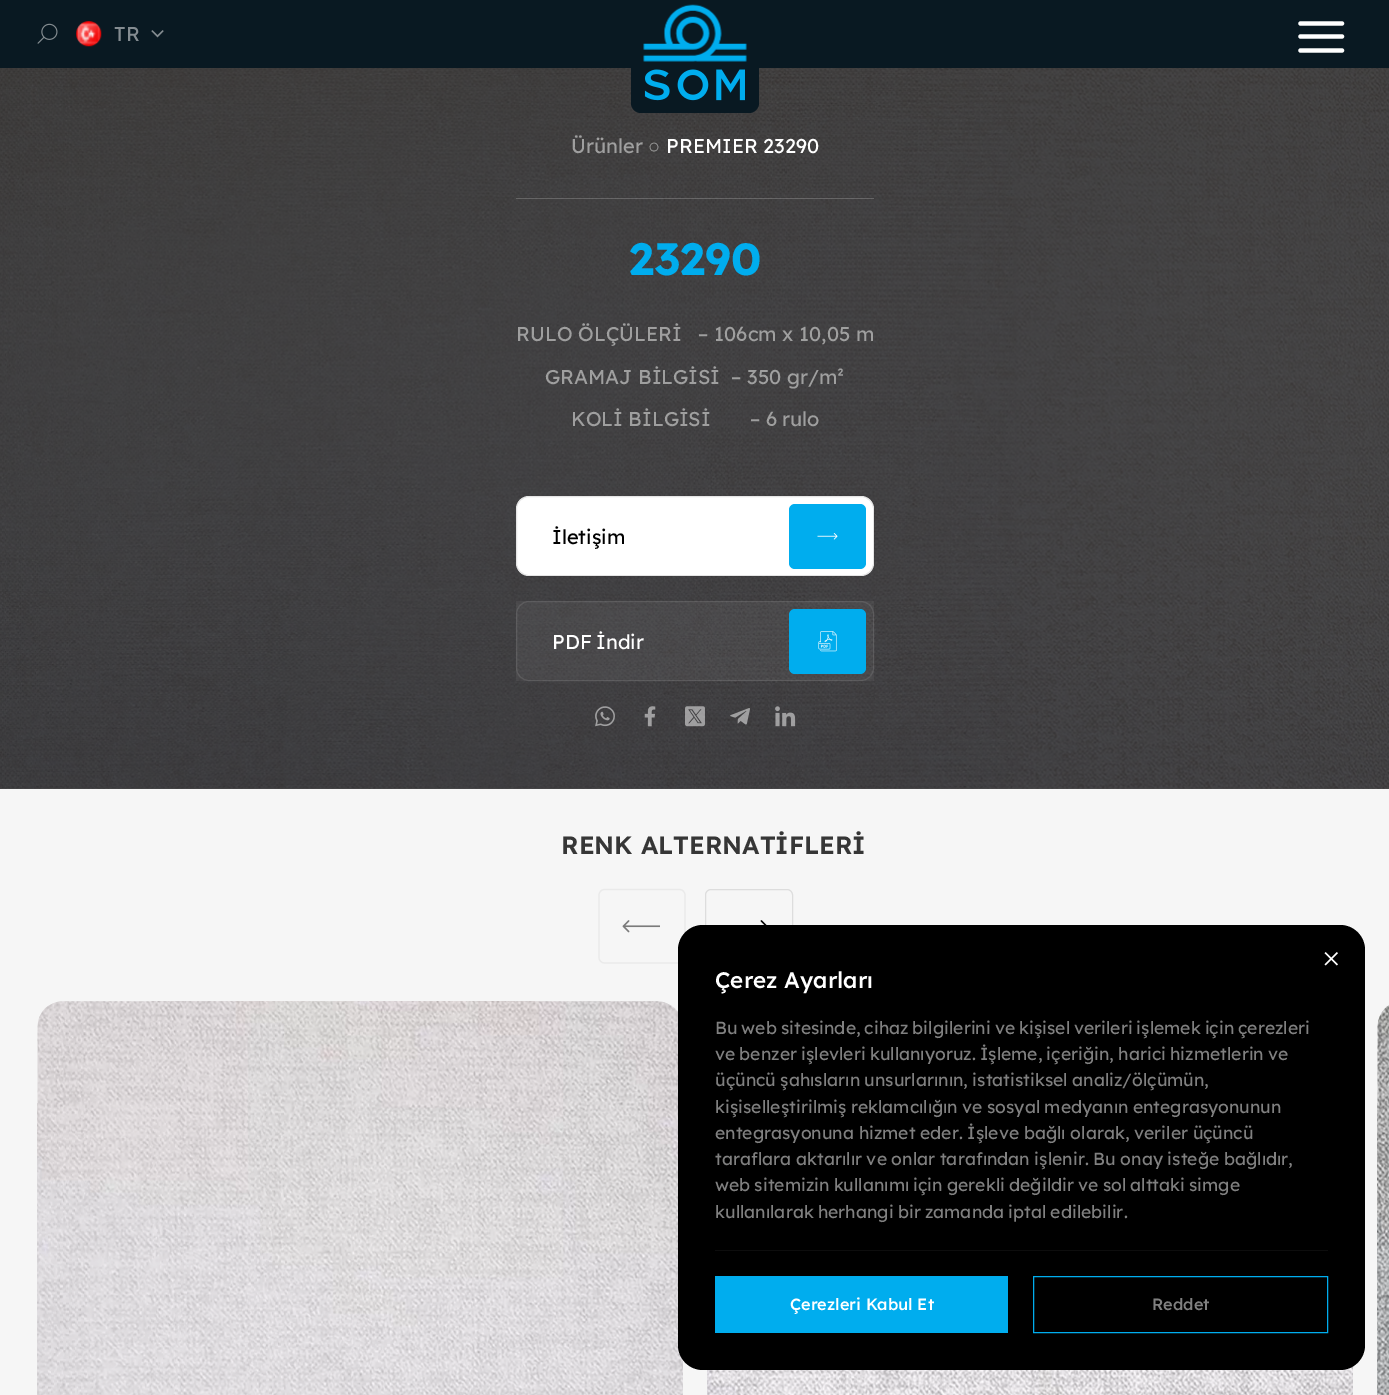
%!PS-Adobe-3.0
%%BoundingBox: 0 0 1389 1395
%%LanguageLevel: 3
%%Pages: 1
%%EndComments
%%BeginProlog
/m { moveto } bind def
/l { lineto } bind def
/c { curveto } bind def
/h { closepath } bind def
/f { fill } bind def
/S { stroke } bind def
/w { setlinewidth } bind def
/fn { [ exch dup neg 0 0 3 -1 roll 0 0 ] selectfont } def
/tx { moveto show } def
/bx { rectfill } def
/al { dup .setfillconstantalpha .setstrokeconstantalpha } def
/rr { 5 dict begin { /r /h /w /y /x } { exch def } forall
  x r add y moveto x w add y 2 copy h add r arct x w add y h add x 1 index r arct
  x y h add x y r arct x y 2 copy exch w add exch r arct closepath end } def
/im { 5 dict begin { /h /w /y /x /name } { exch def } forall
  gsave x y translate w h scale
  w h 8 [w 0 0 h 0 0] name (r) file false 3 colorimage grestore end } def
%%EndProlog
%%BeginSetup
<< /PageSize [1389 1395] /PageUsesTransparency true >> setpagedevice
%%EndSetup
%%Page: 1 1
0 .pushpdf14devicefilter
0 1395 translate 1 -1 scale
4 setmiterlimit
0.302 setgray
0 0 1389 1395 bx
0.035 0.098 0.133 setrgbcolor
0 0 1389 68 bx
(image0.raw) 37 23 21 21 im
(image1.raw) 76 21 26 26 im
/Lexend-Regular 20 fn
0.518 0.549 0.569 setrgbcolor
(TR) 114 41 tx
(image2.raw) 151 30 13 8 im
(image7.raw) 0 68 1389 721 im
0.035 0.098 0.133 setrgbcolor
631 -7 128 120 10 rr f
(image3.raw) 643 4 104 58 im
(image4.raw) 644 69 26 32 im
(image5.raw) 677 69 32 32 im
(image6.raw) 716 69 29 32 im
1 setgray
4.2 w
1 setlinecap
1300.5 36.5 m 1342 36.5 l 1300.5 23.5 m 1342 23.5 l 1300.5 50.5 m 1342 50.5 l S
0.2 al
516 198 358 1 bx
1 al
0.624 setgray
(Ürünler) 571 153 tx
/LiberationSans-Regular 20 fn
(○) 648 153 tx
/Lexend-Regular 20 fn
1 setgray
(PREMIER 23290) 666 153 tx
/Lexend-Bold 45 fn
0 0.678 0.933 setrgbcolor
(23290) 629 275 tx
/Lexend-Regular 20 fn
0.624 setgray
(RULO ÖLÇÜLERİ   – 106cm x 10,05 m) 516 341 tx
(GRAMAJ BİLGİSİ  – 350 gr/m²) 545 384 tx
(KOLİ BİLGİSİ       – 6 rulo) 571 426 tx
1 setgray
516 496 358 80 13 rr f
0.1 al
0 setgray
1 w
0 setlinecap
516.5 496.5 357 79 12.5 rr S
1 al
(İletişim) 552 544 tx
0 0.678 0.933 setrgbcolor
789 504 77 65 6 rr f
(image8.raw) 817 533 21 7 im
0.05 al
1 setgray
516 601 358 80 bx
0.1 al
516.5 601.5 357 79 12.5 rr S
1 al
552 649 m -1 0 32 (PDF İndir) widthshow
0 0.678 0.933 setrgbcolor
789 609 77 65 6 rr f
(image9.raw) 818 631 19 21 im
(image10.raw) 595 706 20 21 im
(image11.raw) 644 706 12 21 im
(image12.raw) 685 706 20 21 im
(image13.raw) 730 708 20 17 im
(image14.raw) 775 706 21 21 im
0.965 setgray
0 789 1389 606 bx
/Lexend-SemiBold 25 fn
0.212 setgray
(RENK ALTERNATİFLERİ) 561 854 tx
0.918 setgray
1.2 w
679.5 963 m 604.5 963 l 601.5 963 599 960.5 599 957.5 c 599 895 l 599 892 601.5 889.5 604.5 889.5 c 679.5 889.5 l 682.5 889.5 685 892 685 895 c 685 957.5 l 685 960.5 682.5 963 679.5 963 c h S
(image15.raw) 622 920 38 13 im
0.867 setgray
1 w
705.5 889.5 87 74 5.5 rr S
(image16.raw) 760 920 7 5 im
(image17.raw) 37 1001 646 394 im
(image18.raw) 707 1366 646 29 im
(image19.raw) 1377 1005 12 390 im
0 setgray
678 925 687 445 25 rr f
(image20.raw) 1324 952 14 14 im
/Lexend-Medium 22.5 fn
1 setgray
(Çerez Ayarları) 715 988 tx
/Lexend-Regular 17.5 fn
0.502 setgray
715 1034 m -1 0 32 (Bu web sitesinde, cihaz bilgilerini ve kişisel verileri işlemek için çerezleri) widthshow
715 1060 m -0.75 0 32 (ve benzer işlevleri kullanıyoruz. İşleme, içeriğin, harici hizmetlerin ve) widthshow
715 1086 m -0.5 0 32 (üçüncü şahısların unsurlarının, istatistiksel analiz/ölçümün,) widthshow
715 1113 m -0.5 0 32 (kişiselleştirilmiş reklamcılığın ve sosyal medyanın entegrasyonunun) widthshow
715 1139 m -0.25 0 32 (entegrasyonuna hizmet eder. İşleve bağlı olarak, veriler üçüncü) widthshow
715 1165 m -0.25 0 32 (taraflara aktarılır ve onlar tarafından işlenir. Bu onay isteğe bağlıdır,) widthshow
715 1191 m -0.75 0 32 (web sitemizin kullanımı için gerekli değildir ve sol alttaki simge) widthshow
715 1218 m -0.75 0 32 (kullanılarak herhangi bir zamanda iptal edilebilir.) widthshow
0.051 setgray
715 1250 613 1 bx
0 0.678 0.933 setrgbcolor
715 1276 293 57 bx
/Lexend-Medium 16.25 fn
1 setgray
(Çerezleri Kabul Et) 790 1310 tx
0 0.678 0.933 setrgbcolor
1033.5 1276.5 294 56 rectstroke
0.502 setgray
(Reddet) 1152 1310 tx
.poppdf14devicefilter showpage
%%EOF
